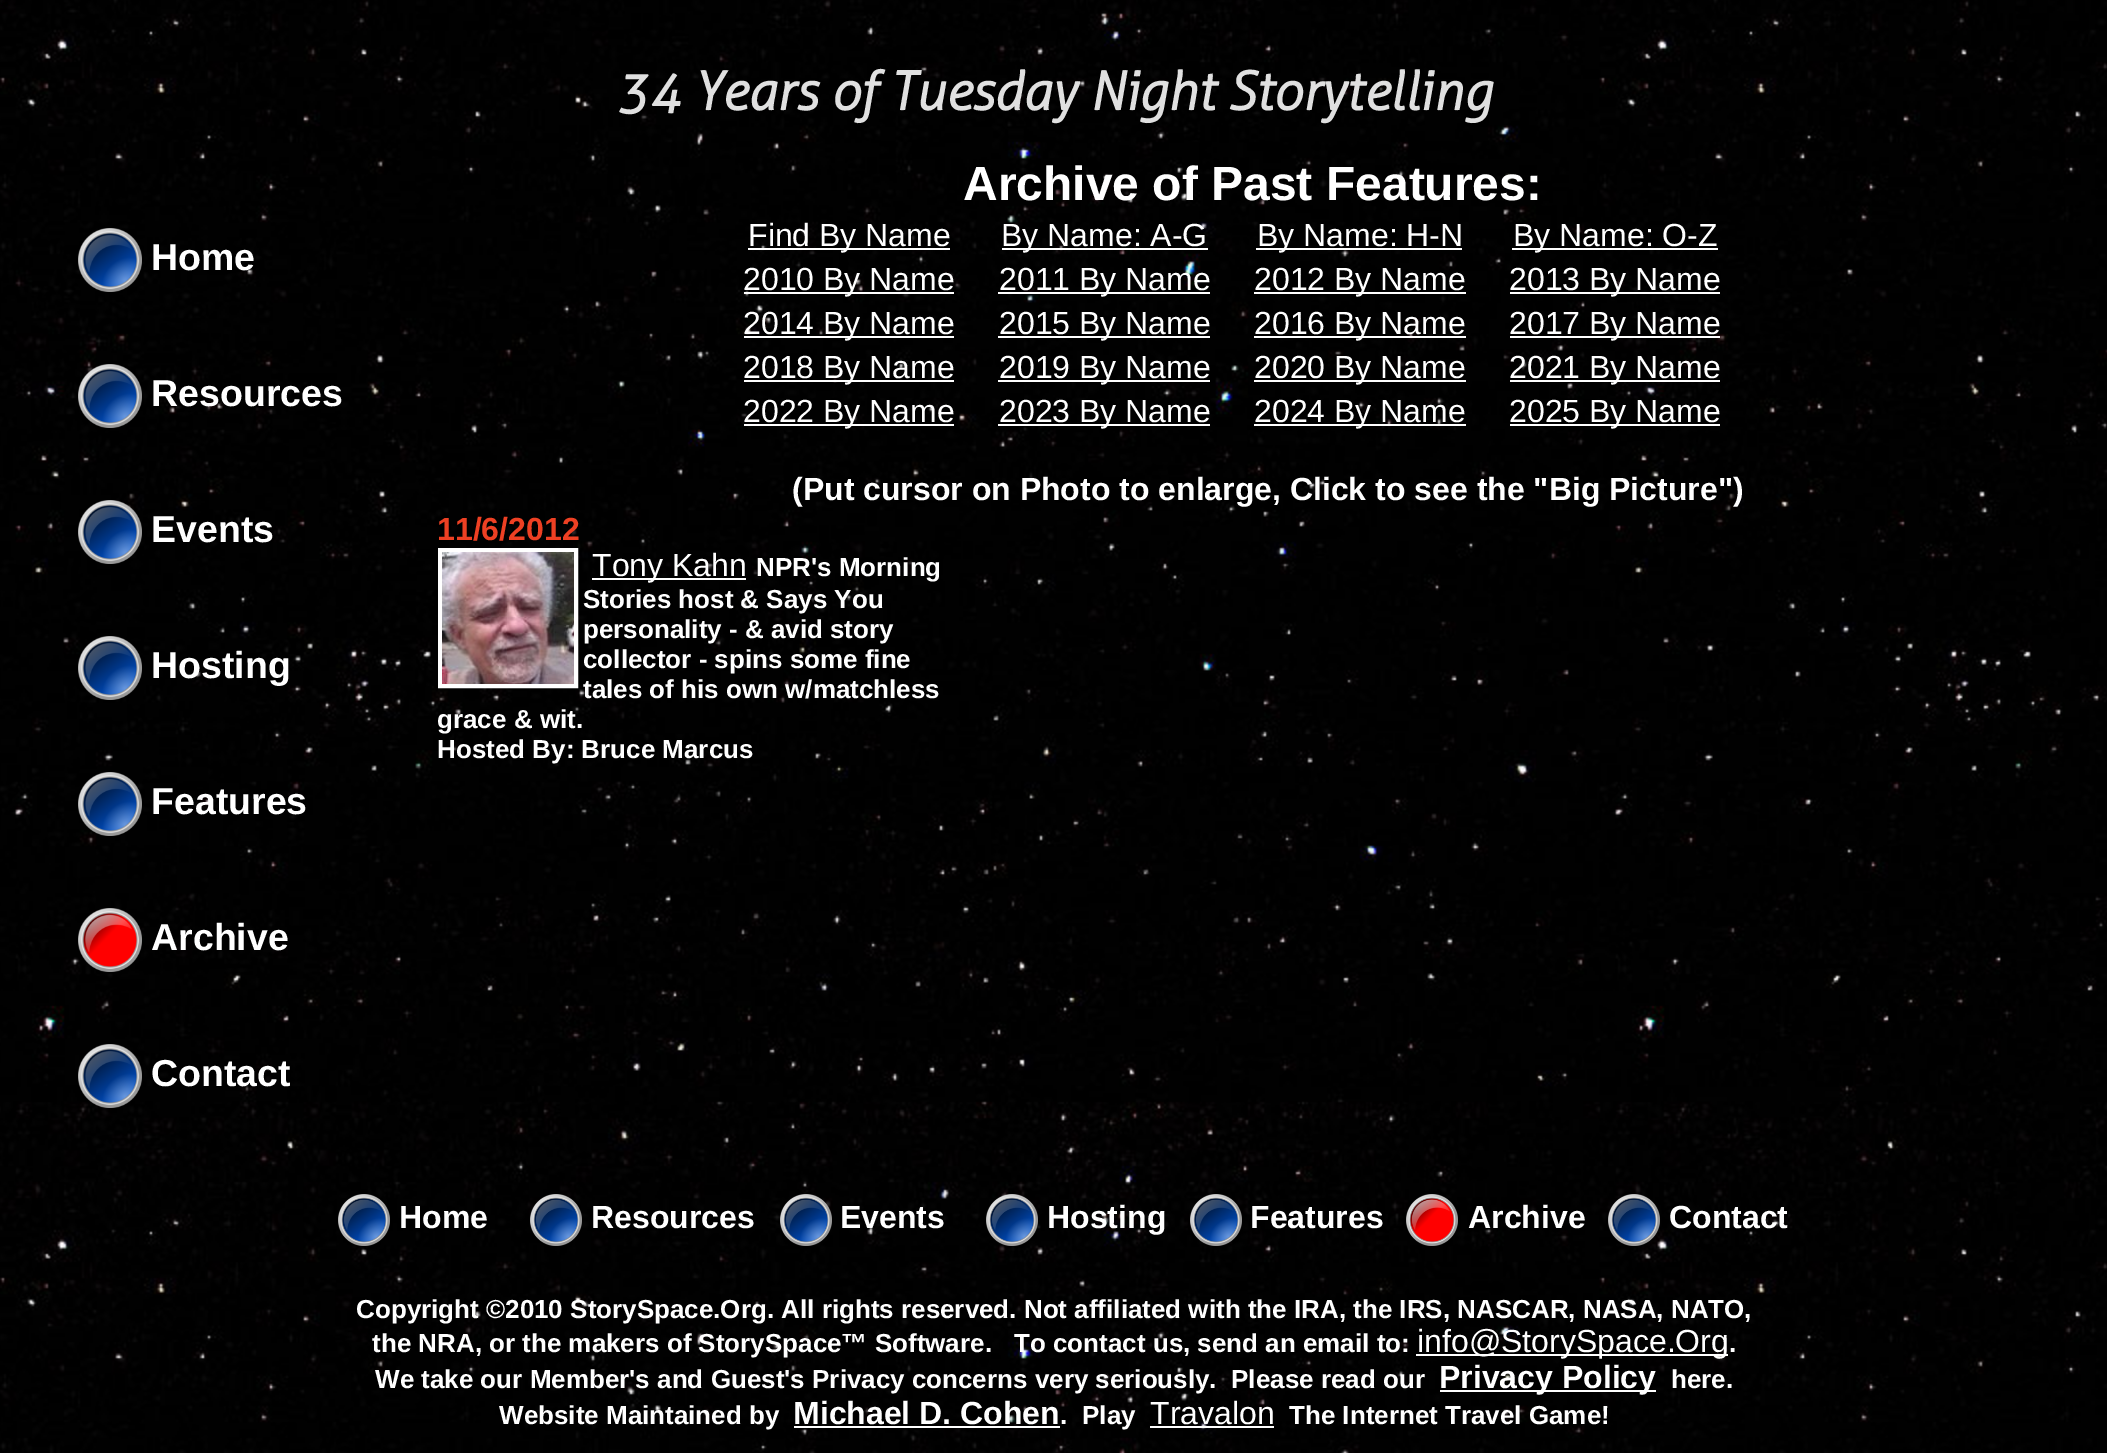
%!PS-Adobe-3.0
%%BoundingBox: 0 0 2107 1453
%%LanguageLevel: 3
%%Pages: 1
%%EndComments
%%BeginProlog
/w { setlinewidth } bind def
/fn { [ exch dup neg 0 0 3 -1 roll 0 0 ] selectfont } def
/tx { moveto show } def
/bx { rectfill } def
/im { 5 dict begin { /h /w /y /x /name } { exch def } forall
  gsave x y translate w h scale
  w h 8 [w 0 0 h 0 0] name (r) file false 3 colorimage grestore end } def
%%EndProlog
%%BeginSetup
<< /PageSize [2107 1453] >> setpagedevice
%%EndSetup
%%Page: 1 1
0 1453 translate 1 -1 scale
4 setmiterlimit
1 setgray
0 0 2107 1453 bx
(image0.raw) 0 0 2107 1453 im
/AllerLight-BoldItalic 53.3 fn
0.878 setgray
(34 Years of Tuesday Night Storytelling) 616 110 tx
(image1.raw) 78 228 64 64 im
/LiberationSans-Bold 37.5 fn
1 setgray
(Home) 151 270 tx
(image2.raw) 78 364 64 64 im
(Resources) 151 406 tx
(image3.raw) 78 500 64 64 im
(Events) 151 542 tx
(image4.raw) 78 636 64 64 im
(Hosting) 151 678 tx
(image5.raw) 78 772 64 64 im
(Features) 151 814 tx
(image6.raw) 78 908 64 64 im
(Archive) 151 950 tx
(image7.raw) 78 1044 64 64 im
(Contact) 151 1086 tx
/LiberationSans-Bold 48 fn
(Archive of Past Features:) 963 200 tx
748 248 202 2 bx
/LiberationSans-Regular 32 fn
(Find By Name) 748 246 tx
1002 248 206 2 bx
(By Name: A-G) 1001 246 tx
1256 248 206 2 bx
(By Name: H-N) 1257 246 tx
1512 248 206 2 bx
(By Name: O-Z) 1513 246 tx
744 292 210 2 bx
(2010 By Name) 743 290 tx
998 292 212 2 bx
(2011 By Name) 999 290 tx
1254 292 212 2 bx
(2012 By Name) 1254 290 tx
1510 292 210 2 bx
(2013 By Name) 1509 290 tx
744 336 210 2 bx
(2014 By Name) 743 334 tx
998 336 212 2 bx
(2015 By Name) 999 334 tx
1254 336 212 2 bx
(2016 By Name) 1254 334 tx
1510 336 210 2 bx
(2017 By Name) 1509 334 tx
744 380 210 2 bx
(2018 By Name) 743 378 tx
998 380 212 2 bx
(2019 By Name) 999 378 tx
1254 380 212 2 bx
(2020 By Name) 1254 378 tx
1510 380 210 2 bx
(2021 By Name) 1509 378 tx
744 424 210 2 bx
(2022 By Name) 743 422 tx
998 424 212 2 bx
(2023 By Name) 999 422 tx
1254 424 212 2 bx
(2024 By Name) 1254 422 tx
1510 424 210 2 bx
(2025 By Name) 1509 422 tx
/LiberationSans-Bold 32 fn
(\(Put cursor on Photo to enlarge, Click to see the "Big Picture"\)) 792 500 tx
0.933 0.251 0.137 setrgbcolor
(11/6/2012) 437 540 tx
1 setgray
4 w
440 550 136 136 rectstroke
(image8.raw) 442 552 132 132 im
592 578 154 2 bx
/LiberationSans-Regular 32 fn
(Tony Kahn) 592 576 tx
/LiberationSans-Bold 26 fn
(NPR's Morning) 756 576 tx
(Stories host & Says You) 583 608 tx
(personality - & avid story) 583 638 tx
(collector - spins some fine) 583 668 tx
(tales of his own w/matchless) 583 698 tx
(grace & wit.) 437 728 tx
(Hosted By: Bruce Marcus) 437 758 tx
(image9.raw) 338 1194 52 52 im
/LiberationSans-Bold 32 fn
(Home) 399 1228 tx
(image10.raw) 530 1194 52 52 im
(Resources) 591 1228 tx
(image11.raw) 780 1194 52 52 im
(Events) 840 1228 tx
(image12.raw) 986 1194 52 52 im
(Hosting) 1047 1228 tx
(image13.raw) 1190 1194 52 52 im
(Features) 1250 1228 tx
(image14.raw) 1406 1194 52 52 im
(Archive) 1468 1228 tx
(image15.raw) 1608 1194 52 52 im
(Contact) 1669 1228 tx
/LiberationSans-Bold 26 fn
(Copyright ©2010 StorySpace.Org. All rights reserved. Not affiliated with the IRA, the IRS, NASCAR, NASA, NATO,) 356 1318 tx
(the NRA, or the makers of StorySpace™ Software.) 372 1352 tx
(To contact us, send an email to:) 1014 1352 tx
1416 1354 312 2 bx
/LiberationSans-Regular 32 fn
(info@StorySpace.Org) 1417 1352 tx
/LiberationSans-Bold 26 fn
(.) 1729 1352 tx
(We take our Member's and Guest's Privacy concerns very seriously.  Please read our) 375 1388 tx
1440 1390 216 2 bx
/LiberationSans-Bold 32 fn
(Privacy Policy) 1439 1388 tx
/LiberationSans-Bold 26 fn
(here.) 1671 1388 tx
(Website Maintained by) 499 1424 tx
/LiberationSans-Bold 32 fn
(Michael D. Cohen) 793 1424 tx
794 1426 266 2 bx
/LiberationSans-Bold 26 fn
(.) 1060 1424 tx
(Play) 1082 1424 tx
/LiberationSans-Regular 32 fn
(Travalon) 1150 1424 tx
1150 1426 124 2 bx
/LiberationSans-Bold 26 fn
(The Internet Travel Game!) 1289 1424 tx
showpage
%%EOF
